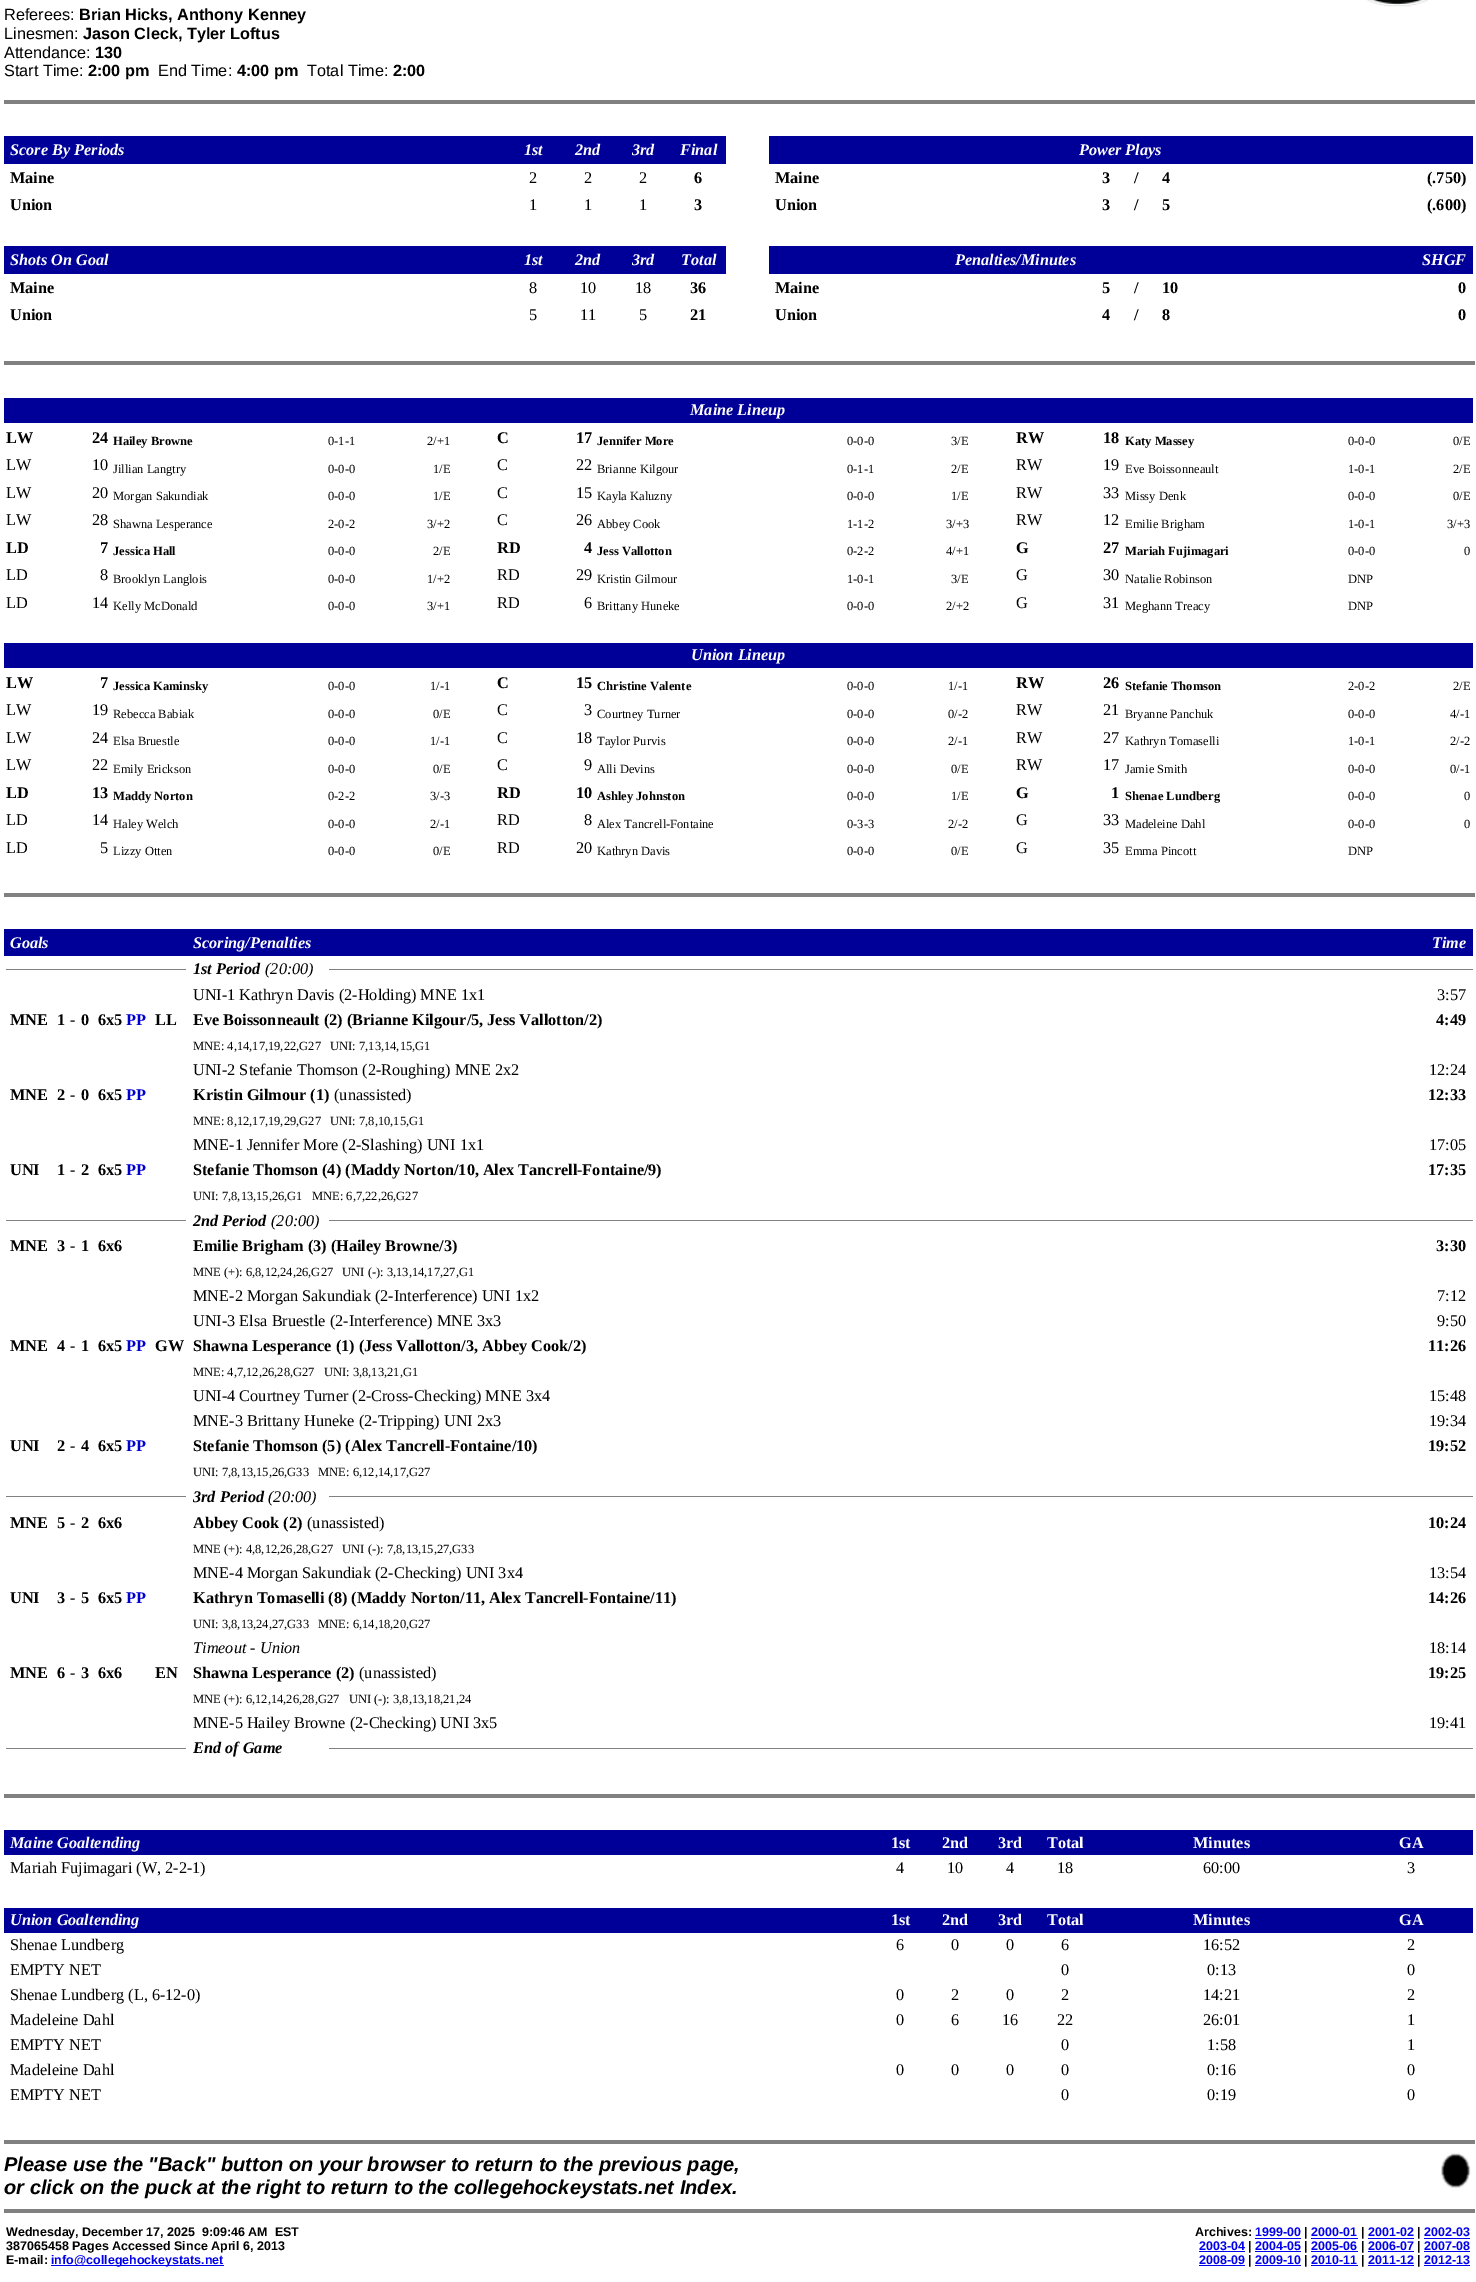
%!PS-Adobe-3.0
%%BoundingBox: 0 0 1476 2282
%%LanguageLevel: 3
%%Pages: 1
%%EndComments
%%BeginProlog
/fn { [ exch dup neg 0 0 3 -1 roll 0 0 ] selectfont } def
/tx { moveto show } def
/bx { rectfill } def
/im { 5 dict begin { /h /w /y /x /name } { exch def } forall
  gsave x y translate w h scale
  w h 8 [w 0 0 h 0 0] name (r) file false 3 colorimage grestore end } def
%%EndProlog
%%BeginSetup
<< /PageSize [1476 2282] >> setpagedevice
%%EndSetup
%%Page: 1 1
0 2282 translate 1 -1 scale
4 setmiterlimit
1 setgray
0 0 1476 2282 bx
(image0.raw) 1367 0 61 7 im
/LiberationSans-Regular 16.25 fn
0 setgray
(Referees:) 4 20 tx
/LiberationSans-Bold 16.25 fn
(Brian Hicks, Anthony Kenney) 79 20 tx
/LiberationSans-Regular 16.25 fn
(Linesmen:) 4 39 tx
/LiberationSans-Bold 16.25 fn
(Jason Cleck, Tyler Loftus) 83 39 tx
/LiberationSans-Regular 16.25 fn
(Attendance:) 4 58 tx
/LiberationSans-Bold 16.25 fn
(130) 95 58 tx
/LiberationSans-Regular 16.25 fn
(Start Time:) 4 76 tx
/LiberationSans-Bold 16.25 fn
(2:00 pm) 88 76 tx
/LiberationSans-Regular 16.25 fn
(End Time:) 158 76 tx
/LiberationSans-Bold 16.25 fn
(4:00 pm) 237 76 tx
/LiberationSans-Regular 16.25 fn
(Total Time:) 307 76 tx
/LiberationSans-Bold 16.25 fn
(2:00) 393 76 tx
0.502 setgray
4 100 1471 4 bx
0 0 0.6 setrgbcolor
4 136 722 28 bx
/LiberationSerif-BoldItalic 16.25 fn
0.996 setgray
(Score By Periods) 10 155 tx
(1st) 524 155 tx
(2nd) 575 155 tx
(3rd) 632 155 tx
(Final) 680 155 tx
0 0 0.6 setrgbcolor
769 136 704 28 bx
0.996 setgray
(Power Plays) 1079 155 tx
/LiberationSerif-Bold 16.25 fn
0 setgray
(Maine) 10 183 tx
/LiberationSerif-Regular 16.25 fn
(2) 529 183 tx
(2) 584 183 tx
(2) 639 183 tx
/LiberationSerif-Bold 16.25 fn
(6) 694 183 tx
(Maine) 775 183 tx
(3) 1102 183 tx
(/) 1134 183 tx
(4) 1162 183 tx
(\(.750\)) 1427 183 tx
(Union) 10 210 tx
/LiberationSerif-Regular 16.25 fn
(1) 529 210 tx
(1) 584 210 tx
(1) 639 210 tx
/LiberationSerif-Bold 16.25 fn
(3) 694 210 tx
(Union) 775 210 tx
(3) 1102 210 tx
(/) 1134 210 tx
(5) 1162 210 tx
(\(.600\)) 1427 210 tx
0 0 0.6 setrgbcolor
4 246 722 28 bx
/LiberationSerif-BoldItalic 16.25 fn
0.996 setgray
(Shots On Goal) 10 265 tx
(1st) 524 265 tx
(2nd) 575 265 tx
(3rd) 632 265 tx
(Total) 681 265 tx
0 0 0.6 setrgbcolor
769 246 704 28 bx
0.996 setgray
(Penalties/Minutes) 955 265 tx
(SHGF) 1422 265 tx
/LiberationSerif-Bold 16.25 fn
0 setgray
(Maine) 10 293 tx
/LiberationSerif-Regular 16.25 fn
(8) 529 293 tx
(10) 580 293 tx
(18) 635 293 tx
/LiberationSerif-Bold 16.25 fn
(36) 690 293 tx
(Maine) 775 293 tx
(5) 1102 293 tx
(/) 1134 293 tx
(10) 1162 293 tx
(0) 1458 293 tx
(Union) 10 320 tx
/LiberationSerif-Regular 16.25 fn
(5) 529 320 tx
(11) 580 320 tx
(5) 639 320 tx
/LiberationSerif-Bold 16.25 fn
(21) 690 320 tx
(Union) 775 320 tx
(4) 1102 320 tx
(/) 1134 320 tx
(8) 1162 320 tx
(0) 1458 320 tx
0.502 setgray
4 361 1471 4 bx
0 0 0.6 setrgbcolor
4 398 1469 25 bx
/LiberationSerif-BoldItalic 16.25 fn
0.996 setgray
(Maine Lineup) 690 415 tx
/LiberationSerif-Bold 16.25 fn
0 setgray
(LW) 6 443 tx
(24) 92 443 tx
/LiberationSerif-Bold 12.5 fn
(Hailey Browne) 113 445 tx
/LiberationSerif-Regular 12.5 fn
(0-1-1) 328 445 tx
(2/+1) 427 445 tx
/LiberationSerif-Bold 16.25 fn
(C) 497 443 tx
(17) 576 443 tx
/LiberationSerif-Bold 12.5 fn
(Jennifer More) 597 445 tx
/LiberationSerif-Regular 12.5 fn
(0-0-0) 847 445 tx
(3/E) 951 445 tx
/LiberationSerif-Bold 16.25 fn
(RW) 1016 443 tx
(18) 1103 443 tx
/LiberationSerif-Bold 12.5 fn
(Katy Massey) 1125 445 tx
/LiberationSerif-Regular 12.5 fn
(0-0-0) 1348 445 tx
(0/E) 1453 445 tx
/LiberationSerif-Regular 16.25 fn
(LW) 6 470 tx
(10) 92 470 tx
/LiberationSerif-Regular 12.5 fn
(Jillian Langtry) 113 473 tx
(0-0-0) 328 473 tx
(1/E) 433 473 tx
/LiberationSerif-Regular 16.25 fn
(C) 497 470 tx
(22) 576 470 tx
/LiberationSerif-Regular 12.5 fn
(Brianne Kilgour) 597 473 tx
(0-1-1) 847 473 tx
(2/E) 951 473 tx
/LiberationSerif-Regular 16.25 fn
(RW) 1016 470 tx
(19) 1103 470 tx
/LiberationSerif-Regular 12.5 fn
(Eve Boissonneault) 1125 473 tx
(1-0-1) 1348 473 tx
(2/E) 1453 473 tx
/LiberationSerif-Regular 16.25 fn
(LW) 6 498 tx
(20) 92 498 tx
/LiberationSerif-Regular 12.5 fn
(Morgan Sakundiak) 113 500 tx
(0-0-0) 328 500 tx
(1/E) 433 500 tx
/LiberationSerif-Regular 16.25 fn
(C) 497 498 tx
(15) 576 498 tx
/LiberationSerif-Regular 12.5 fn
(Kayla Kaluzny) 597 500 tx
(0-0-0) 847 500 tx
(1/E) 951 500 tx
/LiberationSerif-Regular 16.25 fn
(RW) 1016 498 tx
(33) 1103 498 tx
/LiberationSerif-Regular 12.5 fn
(Missy Denk) 1125 500 tx
(0-0-0) 1348 500 tx
(0/E) 1453 500 tx
/LiberationSerif-Regular 16.25 fn
(LW) 6 525 tx
(28) 92 525 tx
/LiberationSerif-Regular 12.5 fn
(Shawna Lesperance) 113 528 tx
(2-0-2) 328 528 tx
(3/+2) 427 528 tx
/LiberationSerif-Regular 16.25 fn
(C) 497 525 tx
(26) 576 525 tx
/LiberationSerif-Regular 12.5 fn
(Abbey Cook) 597 528 tx
(1-1-2) 847 528 tx
(3/+3) 946 528 tx
/LiberationSerif-Regular 16.25 fn
(RW) 1016 525 tx
(12) 1103 525 tx
/LiberationSerif-Regular 12.5 fn
(Emilie Brigham) 1125 528 tx
(1-0-1) 1348 528 tx
(3/+3) 1447 528 tx
/LiberationSerif-Bold 16.25 fn
(LD) 6 553 tx
(7) 100 553 tx
/LiberationSerif-Bold 12.5 fn
(Jessica Hall) 113 555 tx
/LiberationSerif-Regular 12.5 fn
(0-0-0) 328 555 tx
(2/E) 433 555 tx
/LiberationSerif-Bold 16.25 fn
(RD) 497 553 tx
(4) 584 553 tx
/LiberationSerif-Bold 12.5 fn
(Jess Vallotton) 597 555 tx
/LiberationSerif-Regular 12.5 fn
(0-2-2) 847 555 tx
(4/+1) 946 555 tx
/LiberationSerif-Bold 16.25 fn
(G) 1016 553 tx
(27) 1103 553 tx
/LiberationSerif-Bold 12.5 fn
(Mariah Fujimagari) 1125 555 tx
/LiberationSerif-Regular 12.5 fn
(0-0-0) 1348 555 tx
(0) 1464 555 tx
/LiberationSerif-Regular 16.25 fn
(LD) 6 580 tx
(8) 100 580 tx
/LiberationSerif-Regular 12.5 fn
(Brooklyn Langlois) 113 583 tx
(0-0-0) 328 583 tx
(1/+2) 427 583 tx
/LiberationSerif-Regular 16.25 fn
(RD) 497 580 tx
(29) 576 580 tx
/LiberationSerif-Regular 12.5 fn
(Kristin Gilmour) 597 583 tx
(1-0-1) 847 583 tx
(3/E) 951 583 tx
/LiberationSerif-Regular 16.25 fn
(G) 1016 580 tx
(30) 1103 580 tx
/LiberationSerif-Regular 12.5 fn
(Natalie Robinson) 1125 583 tx
(DNP) 1348 583 tx
/LiberationSerif-Regular 16.25 fn
(LD) 6 608 tx
(14) 92 608 tx
/LiberationSerif-Regular 12.5 fn
(Kelly McDonald) 113 610 tx
(0-0-0) 328 610 tx
(3/+1) 427 610 tx
/LiberationSerif-Regular 16.25 fn
(RD) 497 608 tx
(6) 584 608 tx
/LiberationSerif-Regular 12.5 fn
(Brittany Huneke) 597 610 tx
(0-0-0) 847 610 tx
(2/+2) 946 610 tx
/LiberationSerif-Regular 16.25 fn
(G) 1016 608 tx
(31) 1103 608 tx
/LiberationSerif-Regular 12.5 fn
(Meghann Treacy) 1125 610 tx
(DNP) 1348 610 tx
0 0 0.6 setrgbcolor
4 643 1469 25 bx
/LiberationSerif-BoldItalic 16.25 fn
0.996 setgray
(Union Lineup) 691 660 tx
/LiberationSerif-Bold 16.25 fn
0 setgray
(LW) 6 688 tx
(7) 100 688 tx
/LiberationSerif-Bold 12.5 fn
(Jessica Kaminsky) 113 690 tx
/LiberationSerif-Regular 12.5 fn
(0-0-0) 328 690 tx
(1/-1) 430 690 tx
/LiberationSerif-Bold 16.25 fn
(C) 497 688 tx
(15) 576 688 tx
/LiberationSerif-Bold 12.5 fn
(Christine Valente) 597 690 tx
/LiberationSerif-Regular 12.5 fn
(0-0-0) 847 690 tx
(1/-1) 948 690 tx
/LiberationSerif-Bold 16.25 fn
(RW) 1016 688 tx
(26) 1103 688 tx
/LiberationSerif-Bold 12.5 fn
(Stefanie Thomson) 1125 690 tx
/LiberationSerif-Regular 12.5 fn
(2-0-2) 1348 690 tx
(2/E) 1453 690 tx
/LiberationSerif-Regular 16.25 fn
(LW) 6 715 tx
(19) 92 715 tx
/LiberationSerif-Regular 12.5 fn
(Rebecca Babiak) 113 718 tx
(0-0-0) 328 718 tx
(0/E) 433 718 tx
/LiberationSerif-Regular 16.25 fn
(C) 497 715 tx
(3) 584 715 tx
/LiberationSerif-Regular 12.5 fn
(Courtney Turner) 597 718 tx
(0-0-0) 847 718 tx
(0/-2) 948 718 tx
/LiberationSerif-Regular 16.25 fn
(RW) 1016 715 tx
(21) 1103 715 tx
/LiberationSerif-Regular 12.5 fn
(Bryanne Panchuk) 1125 718 tx
(0-0-0) 1348 718 tx
(4/-1) 1450 718 tx
/LiberationSerif-Regular 16.25 fn
(LW) 6 743 tx
(24) 92 743 tx
/LiberationSerif-Regular 12.5 fn
(Elsa Bruestle) 113 745 tx
(0-0-0) 328 745 tx
(1/-1) 430 745 tx
/LiberationSerif-Regular 16.25 fn
(C) 497 743 tx
(18) 576 743 tx
/LiberationSerif-Regular 12.5 fn
(Taylor Purvis) 597 745 tx
(0-0-0) 847 745 tx
(2/-1) 948 745 tx
/LiberationSerif-Regular 16.25 fn
(RW) 1016 743 tx
(27) 1103 743 tx
/LiberationSerif-Regular 12.5 fn
(Kathryn Tomaselli) 1125 745 tx
(1-0-1) 1348 745 tx
(2/-2) 1450 745 tx
/LiberationSerif-Regular 16.25 fn
(LW) 6 770 tx
(22) 92 770 tx
/LiberationSerif-Regular 12.5 fn
(Emily Erickson) 113 773 tx
(0-0-0) 328 773 tx
(0/E) 433 773 tx
/LiberationSerif-Regular 16.25 fn
(C) 497 770 tx
(9) 584 770 tx
/LiberationSerif-Regular 12.5 fn
(Alli Devins) 597 773 tx
(0-0-0) 847 773 tx
(0/E) 951 773 tx
/LiberationSerif-Regular 16.25 fn
(RW) 1016 770 tx
(17) 1103 770 tx
/LiberationSerif-Regular 12.5 fn
(Jamie Smith) 1125 773 tx
(0-0-0) 1348 773 tx
(0/-1) 1450 773 tx
/LiberationSerif-Bold 16.25 fn
(LD) 6 798 tx
(13) 92 798 tx
/LiberationSerif-Bold 12.5 fn
(Maddy Norton) 113 800 tx
/LiberationSerif-Regular 12.5 fn
(0-2-2) 328 800 tx
(3/-3) 430 800 tx
/LiberationSerif-Bold 16.25 fn
(RD) 497 798 tx
(10) 576 798 tx
/LiberationSerif-Bold 12.5 fn
(Ashley Johnston) 597 800 tx
/LiberationSerif-Regular 12.5 fn
(0-0-0) 847 800 tx
(1/E) 951 800 tx
/LiberationSerif-Bold 16.25 fn
(G) 1016 798 tx
(1) 1111 798 tx
/LiberationSerif-Bold 12.5 fn
(Shenae Lundberg) 1125 800 tx
/LiberationSerif-Regular 12.5 fn
(0-0-0) 1348 800 tx
(0) 1464 800 tx
/LiberationSerif-Regular 16.25 fn
(LD) 6 825 tx
(14) 92 825 tx
/LiberationSerif-Regular 12.5 fn
(Haley Welch) 113 828 tx
(0-0-0) 328 828 tx
(2/-1) 430 828 tx
/LiberationSerif-Regular 16.25 fn
(RD) 497 825 tx
(8) 584 825 tx
/LiberationSerif-Regular 12.5 fn
(Alex Tancrell-Fontaine) 597 828 tx
(0-3-3) 847 828 tx
(2/-2) 948 828 tx
/LiberationSerif-Regular 16.25 fn
(G) 1016 825 tx
(33) 1103 825 tx
/LiberationSerif-Regular 12.5 fn
(Madeleine Dahl) 1125 828 tx
(0-0-0) 1348 828 tx
(0) 1464 828 tx
/LiberationSerif-Regular 16.25 fn
(LD) 6 853 tx
(5) 100 853 tx
/LiberationSerif-Regular 12.5 fn
(Lizzy Otten) 113 855 tx
(0-0-0) 328 855 tx
(0/E) 433 855 tx
/LiberationSerif-Regular 16.25 fn
(RD) 497 853 tx
(20) 576 853 tx
/LiberationSerif-Regular 12.5 fn
(Kathryn Davis) 597 855 tx
(0-0-0) 847 855 tx
(0/E) 951 855 tx
/LiberationSerif-Regular 16.25 fn
(G) 1016 853 tx
(35) 1103 853 tx
/LiberationSerif-Regular 12.5 fn
(Emma Pincott) 1125 855 tx
(DNP) 1348 855 tx
0.502 setgray
4 893 1471 4 bx
0 0 0.6 setrgbcolor
4 929 1469 27 bx
/LiberationSerif-BoldItalic 16.25 fn
0.996 setgray
(Goals) 10 948 tx
(Scoring/Penalties) 193 948 tx
(Time) 1432 948 tx
0.502 setgray
6 969 180 1 bx
0 setgray
(1st Period) 193 974 tx
/LiberationSerif-Italic 16.25 fn
(\(20:00\)) 265 974 tx
0.502 setgray
329 969 1144 1 bx
/LiberationSerif-Regular 16.25 fn
0 setgray
(UNI-1 Kathryn Davis \(2-Holding\) MNE 1x1) 193 1000 tx
(3:57) 1437 1000 tx
/LiberationSerif-Bold 16.25 fn
(MNE) 10 1025 tx
(1) 57 1025 tx
(-) 70 1025 tx
(0) 81 1025 tx
(6x5) 98 1025 tx
0 0 0.8 setrgbcolor
(PP) 126 1025 tx
0 setgray
(LL) 155 1025 tx
(Eve Boissonneault \(2\) \(Brianne Kilgour/5, Jess Vallotton/2\)) 193 1025 tx
(4:49) 1436 1025 tx
/LiberationSerif-Regular 12.5 fn
(MNE: 4,14,17,19,22,G27   UNI: 7,13,14,15,G1) 193 1050 tx
/LiberationSerif-Regular 16.25 fn
(UNI-2 Stefanie Thomson \(2-Roughing\) MNE 2x2) 193 1075 tx
(12:24) 1429 1075 tx
/LiberationSerif-Bold 16.25 fn
(MNE) 10 1100 tx
(2) 57 1100 tx
(-) 70 1100 tx
(0) 81 1100 tx
(6x5) 98 1100 tx
0 0 0.8 setrgbcolor
(PP) 126 1100 tx
0 setgray
(Kristin Gilmour \(1\)) 193 1100 tx
/LiberationSerif-Regular 16.25 fn
(\(unassisted\)) 334 1100 tx
/LiberationSerif-Bold 16.25 fn
(12:33) 1428 1100 tx
/LiberationSerif-Regular 12.5 fn
(MNE: 8,12,17,19,29,G27   UNI: 7,8,10,15,G1) 193 1125 tx
/LiberationSerif-Regular 16.25 fn
(MNE-1 Jennifer More \(2-Slashing\) UNI 1x1) 193 1150 tx
(17:05) 1429 1150 tx
/LiberationSerif-Bold 16.25 fn
(UNI) 10 1175 tx
(1) 57 1175 tx
(-) 70 1175 tx
(2) 81 1175 tx
(6x5) 98 1175 tx
0 0 0.8 setrgbcolor
(PP) 126 1175 tx
0 setgray
(Stefanie Thomson \(4\) \(Maddy Norton/10, Alex Tancrell-Fontaine/9\)) 193 1175 tx
(17:35) 1428 1175 tx
/LiberationSerif-Regular 12.5 fn
(UNI: 7,8,13,15,26,G1   MNE: 6,7,22,26,G27) 193 1200 tx
0.502 setgray
6 1220 180 1 bx
/LiberationSerif-BoldItalic 16.25 fn
0 setgray
(2nd Period) 193 1226 tx
/LiberationSerif-Italic 16.25 fn
(\(20:00\)) 271 1226 tx
0.502 setgray
329 1220 1144 1 bx
/LiberationSerif-Bold 16.25 fn
0 setgray
(MNE) 10 1251 tx
(3) 57 1251 tx
(-) 70 1251 tx
(1) 81 1251 tx
(6x6) 98 1251 tx
(Emilie Brigham \(3\) \(Hailey Browne/3\)) 193 1251 tx
(3:30) 1436 1251 tx
/LiberationSerif-Regular 12.5 fn
(MNE \(+\): 6,8,12,24,26,G27   UNI \(-\): 3,13,14,17,27,G1) 193 1276 tx
/LiberationSerif-Regular 16.25 fn
(MNE-2 Morgan Sakundiak \(2-Interference\) UNI 1x2) 193 1301 tx
(7:12) 1437 1301 tx
(UNI-3 Elsa Bruestle \(2-Interference\) MNE 3x3) 193 1326 tx
(9:50) 1437 1326 tx
/LiberationSerif-Bold 16.25 fn
(MNE) 10 1351 tx
(4) 57 1351 tx
(-) 70 1351 tx
(1) 81 1351 tx
(6x5) 98 1351 tx
0 0 0.8 setrgbcolor
(PP) 126 1351 tx
0 setgray
(GW) 155 1351 tx
(Shawna Lesperance \(1\) \(Jess Vallotton/3, Abbey Cook/2\)) 193 1351 tx
(11:26) 1428 1351 tx
/LiberationSerif-Regular 12.5 fn
(MNE: 4,7,12,26,28,G27   UNI: 3,8,13,21,G1) 193 1376 tx
/LiberationSerif-Regular 16.25 fn
(UNI-4 Courtney Turner \(2-Cross-Checking\) MNE 3x4) 193 1401 tx
(15:48) 1429 1401 tx
(MNE-3 Brittany Huneke \(2-Tripping\) UNI 2x3) 193 1426 tx
(19:34) 1429 1426 tx
/LiberationSerif-Bold 16.25 fn
(UNI) 10 1451 tx
(2) 57 1451 tx
(-) 70 1451 tx
(4) 81 1451 tx
(6x5) 98 1451 tx
0 0 0.8 setrgbcolor
(PP) 126 1451 tx
0 setgray
(Stefanie Thomson \(5\) \(Alex Tancrell-Fontaine/10\)) 193 1451 tx
(19:52) 1428 1451 tx
/LiberationSerif-Regular 12.5 fn
(UNI: 7,8,13,15,26,G33   MNE: 6,12,14,17,G27) 193 1476 tx
0.502 setgray
6 1496 180 1 bx
/LiberationSerif-BoldItalic 16.25 fn
0 setgray
(3rd Period) 193 1502 tx
/LiberationSerif-Italic 16.25 fn
(\(20:00\)) 268 1502 tx
0.502 setgray
329 1496 1144 1 bx
/LiberationSerif-Bold 16.25 fn
0 setgray
(MNE) 10 1528 tx
(5) 57 1528 tx
(-) 70 1528 tx
(2) 81 1528 tx
(6x6) 98 1528 tx
(Abbey Cook \(2\)) 193 1528 tx
/LiberationSerif-Regular 16.25 fn
(\(unassisted\)) 307 1528 tx
/LiberationSerif-Bold 16.25 fn
(10:24) 1428 1528 tx
/LiberationSerif-Regular 12.5 fn
(MNE \(+\): 4,8,12,26,28,G27   UNI \(-\): 7,8,13,15,27,G33) 193 1553 tx
/LiberationSerif-Regular 16.25 fn
(MNE-4 Morgan Sakundiak \(2-Checking\) UNI 3x4) 193 1578 tx
(13:54) 1429 1578 tx
/LiberationSerif-Bold 16.25 fn
(UNI) 10 1603 tx
(3) 57 1603 tx
(-) 70 1603 tx
(5) 81 1603 tx
(6x5) 98 1603 tx
0 0 0.8 setrgbcolor
(PP) 126 1603 tx
0 setgray
(Kathryn Tomaselli \(8\) \(Maddy Norton/11, Alex Tancrell-Fontaine/11\)) 193 1603 tx
(14:26) 1428 1603 tx
/LiberationSerif-Regular 12.5 fn
(UNI: 3,8,13,24,27,G33   MNE: 6,14,18,20,G27) 193 1628 tx
/LiberationSerif-Italic 16.25 fn
(Timeout - Union) 193 1653 tx
/LiberationSerif-Regular 16.25 fn
(18:14) 1429 1653 tx
/LiberationSerif-Bold 16.25 fn
(MNE) 10 1678 tx
(6) 57 1678 tx
(-) 70 1678 tx
(3) 81 1678 tx
(6x6) 98 1678 tx
(EN) 155 1678 tx
(Shawna Lesperance \(2\)) 193 1678 tx
/LiberationSerif-Regular 16.25 fn
(\(unassisted\)) 359 1678 tx
/LiberationSerif-Bold 16.25 fn
(19:25) 1428 1678 tx
/LiberationSerif-Regular 12.5 fn
(MNE \(+\): 6,12,14,26,28,G27   UNI \(-\): 3,8,13,18,21,24) 193 1703 tx
/LiberationSerif-Regular 16.25 fn
(MNE-5 Hailey Browne \(2-Checking\) UNI 3x5) 193 1728 tx
(19:41) 1429 1728 tx
0.502 setgray
6 1748 180 1 bx
/LiberationSerif-BoldItalic 16.25 fn
0 setgray
(End of Game) 193 1753 tx
0.502 setgray
329 1748 1144 1 bx
4 1794 1471 4 bx
0 0 0.6 setrgbcolor
4 1830 1469 25 bx
0.996 setgray
(Maine Goaltending) 10 1848 tx
/LiberationSerif-Bold 16.25 fn
(1st) 891 1848 tx
(2nd) 942 1848 tx
(3rd) 998 1848 tx
(Total) 1047 1848 tx
(Minutes) 1193 1848 tx
(GA) 1399 1848 tx
/LiberationSerif-Regular 16.25 fn
0 setgray
(Mariah Fujimagari \(W, 2-2-1\)) 10 1873 tx
(4) 896 1873 tx
(10) 947 1873 tx
(4) 1006 1873 tx
(18) 1057 1873 tx
(60:00) 1203 1873 tx
(3) 1407 1873 tx
0 0 0.6 setrgbcolor
4 1908 1469 25 bx
/LiberationSerif-BoldItalic 16.25 fn
0.996 setgray
(Union Goaltending) 10 1925 tx
/LiberationSerif-Bold 16.25 fn
(1st) 891 1925 tx
(2nd) 942 1925 tx
(3rd) 998 1925 tx
(Total) 1047 1925 tx
(Minutes) 1193 1925 tx
(GA) 1399 1925 tx
/LiberationSerif-Regular 16.25 fn
0 setgray
(Shenae Lundberg) 10 1950 tx
(6) 896 1950 tx
(0) 951 1950 tx
(0) 1006 1950 tx
(6) 1061 1950 tx
(16:52) 1203 1950 tx
(2) 1407 1950 tx
(EMPTY NET) 10 1975 tx
(0) 1061 1975 tx
(0:13) 1207 1975 tx
(0) 1407 1975 tx
(Shenae Lundberg \(L, 6-12-0\)) 10 2000 tx
(0) 896 2000 tx
(2) 951 2000 tx
(0) 1006 2000 tx
(2) 1061 2000 tx
(14:21) 1203 2000 tx
(2) 1407 2000 tx
(Madeleine Dahl) 10 2025 tx
(0) 896 2025 tx
(6) 951 2025 tx
(16) 1002 2025 tx
(22) 1057 2025 tx
(26:01) 1203 2025 tx
(1) 1407 2025 tx
(EMPTY NET) 10 2050 tx
(0) 1061 2050 tx
(1:58) 1207 2050 tx
(1) 1407 2050 tx
(Madeleine Dahl) 10 2075 tx
(0) 896 2075 tx
(0) 951 2075 tx
(0) 1006 2075 tx
(0) 1061 2075 tx
(0:16) 1207 2075 tx
(0) 1407 2075 tx
(EMPTY NET) 10 2100 tx
(0) 1061 2100 tx
(0:19) 1207 2100 tx
(0) 1407 2100 tx
0.502 setgray
4 2140 1471 4 bx
/LiberationSans-BoldItalic 20 fn
0 setgray
(Please use the "Back" button on your browser to return to the previous page,) 4 2171 tx
(image1.raw) 1441 2153 30 35 im
(or click on the puck at the right to return to the collegehockeystats.net Index.) 4 2194 tx
0.502 setgray
4 2209 1471 4 bx
/LiberationSans-Bold 12.5 fn
0 setgray
(Wednesday, December 17, 2025  9:09:46 AM  EST) 6 2236 tx
(387065458 Pages Accessed Since April 6, 2013) 6 2250 tx
(E-mail:) 6 2264 tx
0 0 0.933 setrgbcolor
51 2265 173 1 bx
(info@collegehockeystats.net) 51 2264 tx
0 setgray
(Archives:) 1195 2236 tx
0 0 0.933 setrgbcolor
(1999-00) 1255 2236 tx
1255 2238 46 1 bx
0 setgray
(|) 1304 2236 tx
0 0 0.933 setrgbcolor
(2000-01) 1311 2236 tx
1311 2238 47 1 bx
0 setgray
(|) 1361 2236 tx
0 0 0.933 setrgbcolor
(2001-02) 1368 2236 tx
1368 2238 46 1 bx
0 setgray
(|) 1417 2236 tx
0 0 0.933 setrgbcolor
(2002-03) 1424 2236 tx
1424 2238 46 1 bx
(2003-04) 1199 2250 tx
1199 2251 46 1 bx
0 setgray
(|) 1248 2250 tx
0 0 0.933 setrgbcolor
(2004-05) 1255 2250 tx
1255 2251 46 1 bx
0 setgray
(|) 1304 2250 tx
0 0 0.933 setrgbcolor
(2005-06) 1311 2250 tx
1311 2251 47 1 bx
0 setgray
(|) 1361 2250 tx
0 0 0.933 setrgbcolor
(2006-07) 1368 2250 tx
1368 2251 46 1 bx
0 setgray
(|) 1417 2250 tx
0 0 0.933 setrgbcolor
(2007-08) 1424 2250 tx
1424 2251 46 1 bx
(2008-09) 1199 2264 tx
1199 2265 46 1 bx
0 setgray
(|) 1248 2264 tx
0 0 0.933 setrgbcolor
(2009-10) 1255 2264 tx
1255 2265 46 1 bx
0 setgray
(|) 1304 2264 tx
0 0 0.933 setrgbcolor
(2010-11) 1311 2264 tx
1311 2265 47 1 bx
0 setgray
(|) 1361 2264 tx
0 0 0.933 setrgbcolor
(2011-12) 1368 2264 tx
1368 2265 46 1 bx
0 setgray
(|) 1417 2264 tx
0 0 0.933 setrgbcolor
(2012-13) 1424 2264 tx
1424 2265 46 1 bx
showpage
%%EOF
